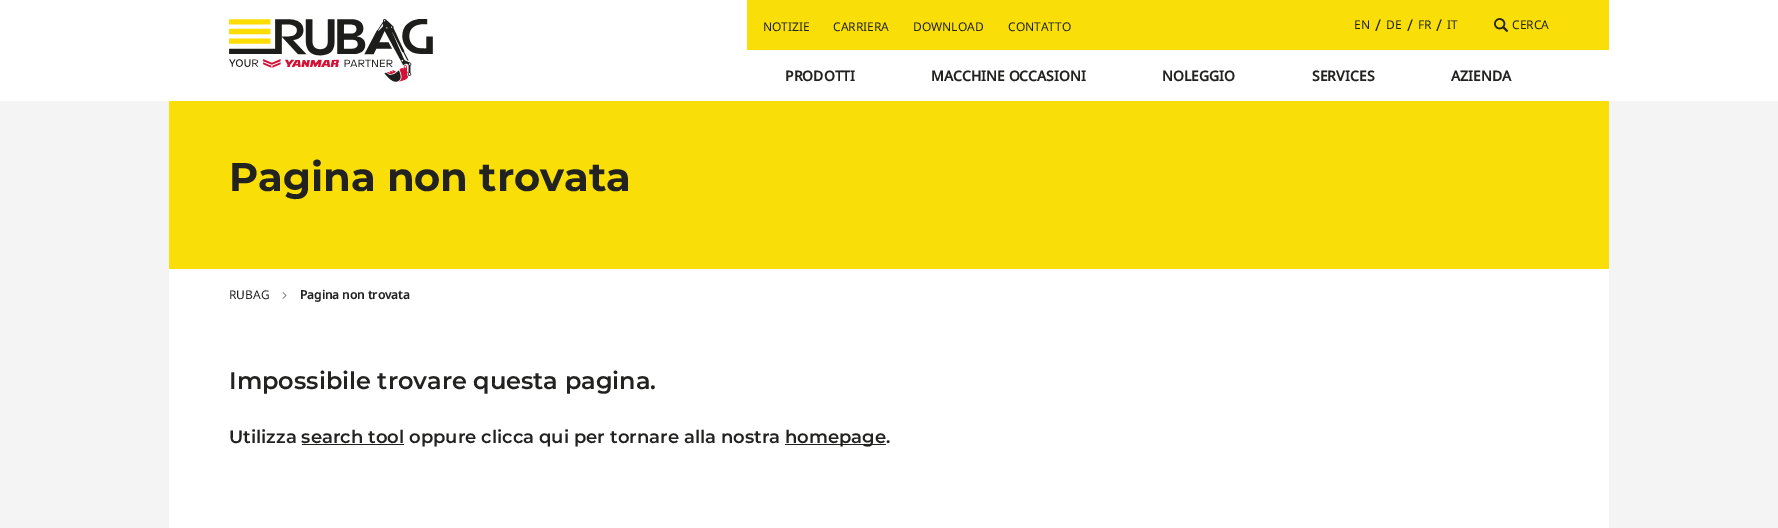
%!PS-Adobe-3.0
%%BoundingBox: 0 0 1778 528
%%LanguageLevel: 3
%%Pages: 1
%%EndComments
%%BeginProlog
/fn { [ exch dup neg 0 0 3 -1 roll 0 0 ] selectfont } def
/tx { moveto show } def
/bx { rectfill } def
/im { 5 dict begin { /h /w /y /x /name } { exch def } forall
  gsave x y translate w h scale
  w h 8 [w 0 0 h 0 0] name (r) file false 3 colorimage grestore end } def
%%EndProlog
%%BeginSetup
<< /PageSize [1778 528] >> setpagedevice
%%EndSetup
%%Page: 1 1
0 528 translate 1 -1 scale
4 setmiterlimit
0.957 setgray
0 0 1778 528 bx
1 setgray
0 0 1778 101 bx
(image0.raw) 229 19 204 63 im
0.976 0.871 0.027 setrgbcolor
747 0 862 50 bx
/NotoSans-Regular 12 fn
0.133 0.133 0.129 setrgbcolor
(NOTIZIE) 763 31 tx
(CARRIERA) 833 31 tx
(DOWNLOAD) 913 31 tx
(CONTATTO) 1008 31 tx
(EN) 1354 29 tx
/NotoSans-Regular 16 fn
(/) 1375 31 tx
/NotoSans-Regular 12 fn
(DE) 1386 29 tx
/NotoSans-Regular 16 fn
(/) 1407 31 tx
/NotoSans-Regular 12 fn
(FR) 1418 29 tx
/NotoSans-Regular 16 fn
(/) 1436 31 tx
/NotoSans-Regular 12 fn
(IT) 1447 29 tx
(image1.raw) 1494 18 14 14 im
(CERCA) 1512 29 tx
/NotoSans-Bold 14 fn
(PRODOTTI) 785 81 tx
(MACCHINE OCCASIONI) 931 81 tx
(NOLEGGIO) 1162 81 tx
(SERVICES) 1312 81 tx
(AZIENDA) 1451 81 tx
1 setgray
169 269 1440 259 bx
0.976 0.871 0.027 setrgbcolor
169 101 1440 168 bx
/Montserrat-Bold 40 fn
0.133 0.133 0.129 setrgbcolor
(Pagina non trovata) 229 191 tx
/NotoSans-Regular 12 fn
(RUBAG) 229 299 tx
(image2.raw) 282 292 5 7 im
/NotoSans-Bold 12 fn
(Pagina non trovata) 300 299 tx
/Montserrat-SemiBold 24 fn
(Impossibile trovare questa pagina.) 229 389 tx
/Montserrat-SemiBold 18 fn
(Utilizza search tool oppure clicca qui per tornare alla nostra) 229 443 tx
785 444 101 1 bx
(homepage.) 785 443 tx
302 444 102 1 bx
showpage
%%EOF
